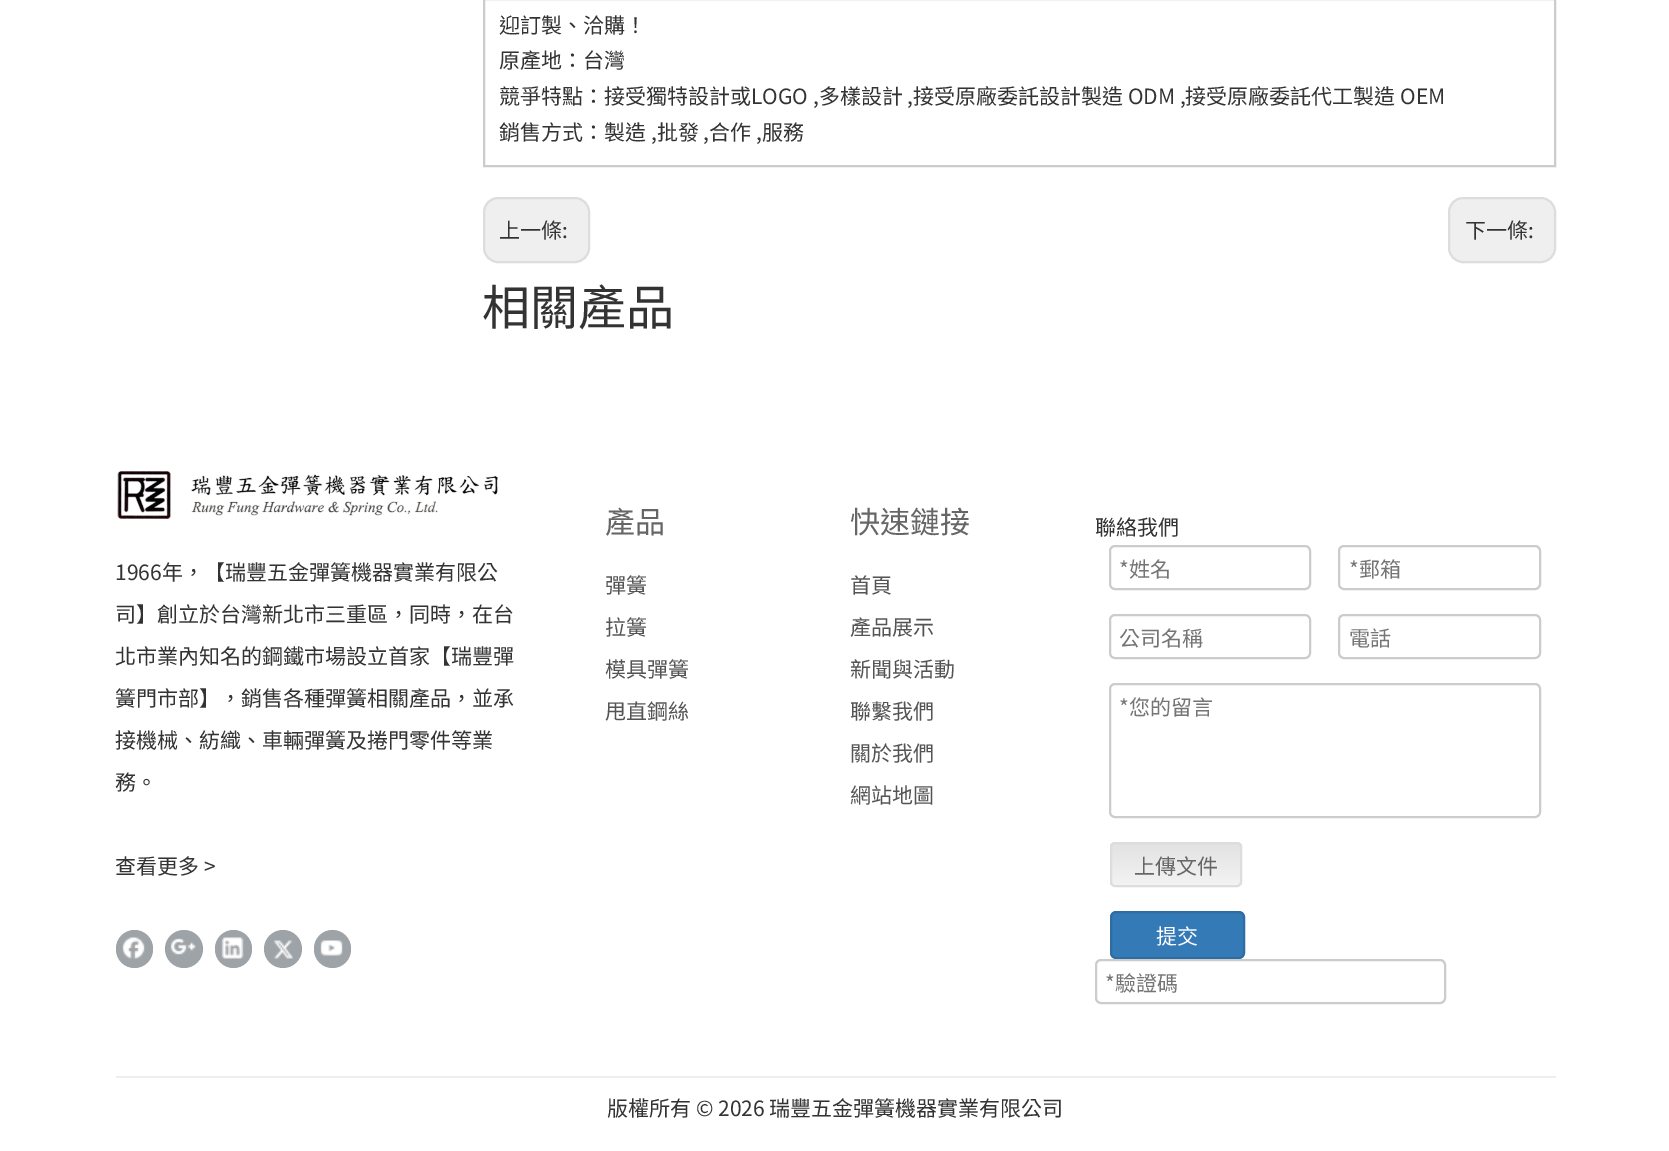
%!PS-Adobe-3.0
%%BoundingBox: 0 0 1669 1151
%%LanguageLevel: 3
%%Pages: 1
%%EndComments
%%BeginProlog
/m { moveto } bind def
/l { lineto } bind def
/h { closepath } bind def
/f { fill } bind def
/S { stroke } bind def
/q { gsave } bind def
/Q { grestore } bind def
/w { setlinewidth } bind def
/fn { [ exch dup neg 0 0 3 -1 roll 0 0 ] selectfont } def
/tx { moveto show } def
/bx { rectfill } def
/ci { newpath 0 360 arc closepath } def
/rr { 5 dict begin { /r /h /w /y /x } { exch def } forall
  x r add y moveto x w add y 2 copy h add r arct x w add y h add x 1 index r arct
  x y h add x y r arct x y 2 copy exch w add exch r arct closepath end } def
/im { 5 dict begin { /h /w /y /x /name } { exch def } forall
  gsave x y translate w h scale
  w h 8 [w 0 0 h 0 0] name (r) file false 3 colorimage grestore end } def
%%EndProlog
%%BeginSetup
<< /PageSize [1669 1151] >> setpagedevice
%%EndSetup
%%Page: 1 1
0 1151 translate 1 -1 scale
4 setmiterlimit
1 setgray
0 0 1669 1151 bx
0.8 setgray
2 w
484 -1 1071 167 rectstroke
/NotoSansTC-Thin 21 fn
0.2 setgray
(迎訂製、洽購！) 499 33 tx
(原產地：台灣) 499 68 tx
(競爭特點：接受獨特設計或LOGO ,多樣設計 ,接受原廠委託設計製造 ODM ,接受原廠委託代工製造 OEM) 499 104 tx
(銷售方式：製造 ,批發 ,合作 ,服務) 499 140 tx
0.937 setgray
484 198 105 64 14 rr q f Q
0.867 setgray
S
0.2 setgray
(上一條:) 499 238 tx
0.937 setgray
1449 198 106 64 14 rr q f Q
0.867 setgray
S
0.2 setgray
(下一條:) 1465 238 tx
/NotoSansTC-Thin 48 fn
(相關產品) 482 325 tx
(image0.raw) 117 471 381 48 im
/NotoSansTC-Thin 21 fn
(1966年，【瑞豐五金彈簧機器實業有限公) 115 580 tx
(司】創立於台灣新北市三重區，同時，在台) 115 622 tx
(北市業內知名的鋼鐵市場設立首家【瑞豐彈) 115 664 tx
(簧門市部】，銷售各種彈簧相關產品，並承) 115 706 tx
(接機械、紡織、車輛彈簧及捲門零件等業) 115 748 tx
(務。) 115 790 tx
(查看更多 >) 115 874 tx
0.62 0.639 0.655 setrgbcolor
116 930 37 38 18.5 rr f
(image1.raw) 122 937 23 22 im
184 949 19 ci f
(image2.raw) 170 938 26 17 im
215 930 37 38 18.5 rr f
(image3.raw) 221 937 23 22 im
283 949 19 ci f
(image4.raw) 273 940 21 19 im
314 930 37 38 18.5 rr f
(image5.raw) 320 940 23 16 im
/NotoSansTC-Thin 30 fn
0.4 setgray
(產品) 605 533 tx
/NotoSansTC-Thin 21 fn
0.329 setgray
(彈簧) 605 593 tx
(拉簧) 605 635 tx
(模具彈簧) 605 677 tx
(甩直鋼絲) 605 719 tx
/NotoSansTC-Thin 30 fn
0.4 setgray
(快速鏈接) 850 533 tx
/NotoSansTC-Thin 21 fn
0.329 setgray
(首頁) 850 593 tx
(產品展示) 850 635 tx
(新聞與活動) 850 677 tx
(聯繫我們) 850 719 tx
(關於我們) 850 761 tx
(網站地圖) 850 803 tx
0.2 setgray
(聯絡我們) 1095 535 tx
0.8 setgray
1110 546 200 43 5 rr S
0.459 setgray
(*姓名) 1119 577 tx
0.8 setgray
1339 546 201 43 5 rr S
0.459 setgray
(*郵箱) 1349 577 tx
0.8 setgray
1110 615 200 43 5 rr S
0.459 setgray
(公司名稱) 1119 646 tx
0.8 setgray
1339 615 201 43 5 rr S
0.459 setgray
(電話) 1349 646 tx
0.8 setgray
1110 684 430 133 5 rr S
0.459 setgray
(*您的留言) 1119 715 tx
q
1110 842 132 45 5 rr clip newpath
q 1110 843 m 1242 843 l 1242 885 l 1110 885 l h clip newpath
<< /ShadingType 2 /ColorSpace /DeviceRGB /Coords [1176 843 1176 885] /Extend [true true] /Function << /FunctionType 2 /Domain [0 1] /C0 [0.886 0.886 0.886] /C1 [0.953 0.953 0.953] /N 1 >> >> shfill Q
Q
0.867 setgray
1111 843 130 43 4 rr S
0.4 setgray
(上傳文件) 1134 874 tx
0.2 0.478 0.718 setrgbcolor
1111 912 133 46 5 rr q f Q
0.18 0.427 0.643 setrgbcolor
S
1 setgray
(提交) 1156 944 tx
0.8 setgray
1096 960 349 43 5 rr S
0.459 setgray
(*驗證碼) 1105 991 tx
0.933 setgray
116 1076 1440 2 bx
0.2 setgray
(版權所有 © 2026 瑞豐五金彈簧機器實業有限公司) 607 1116 tx
showpage
%%EOF
